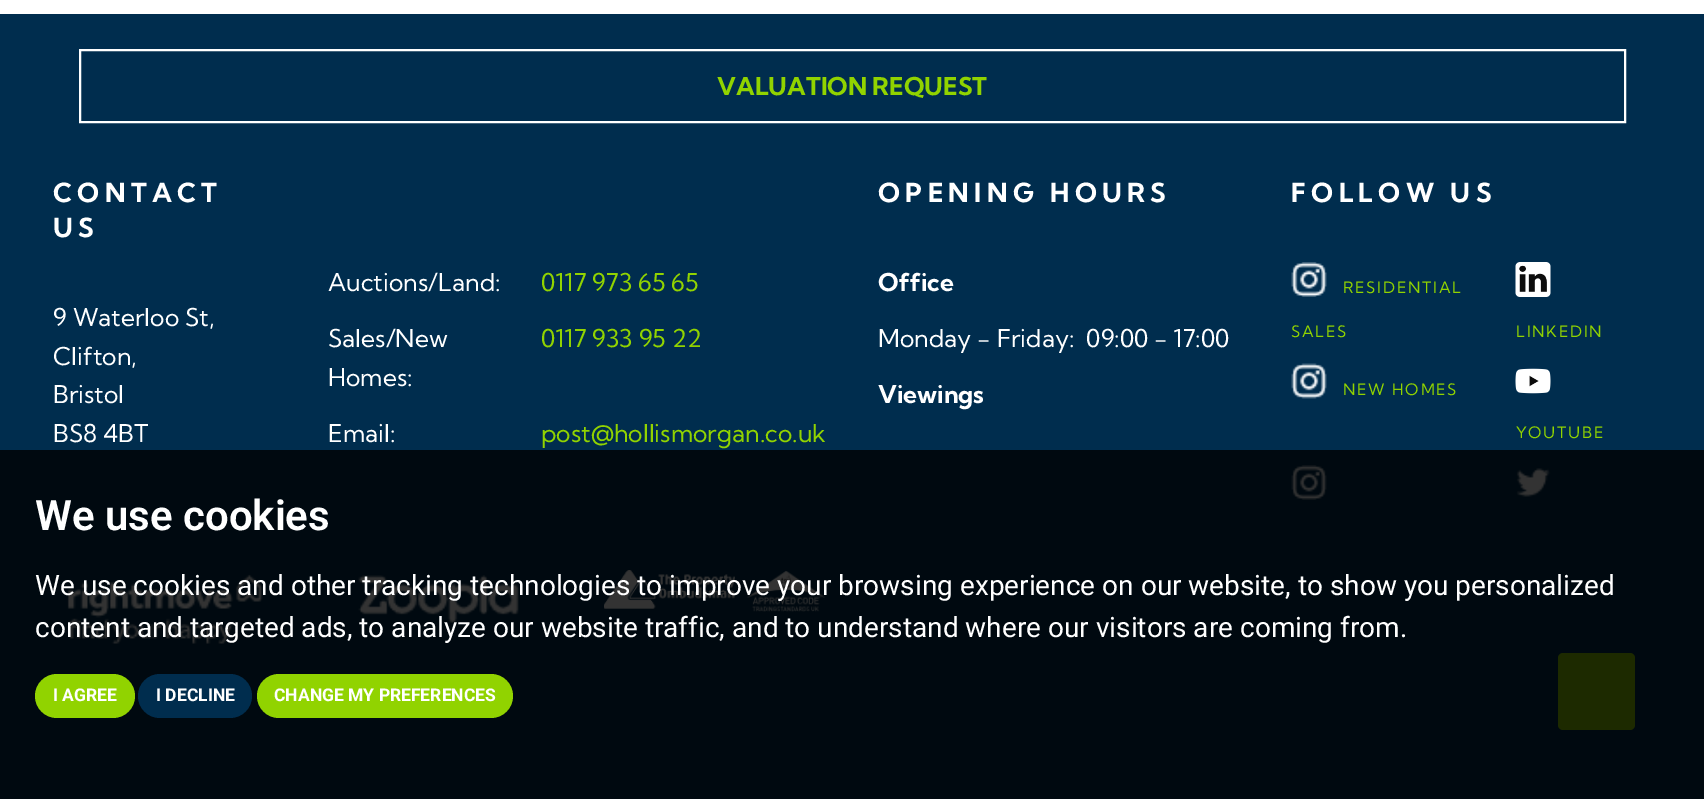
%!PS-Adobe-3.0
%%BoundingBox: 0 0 1704 799
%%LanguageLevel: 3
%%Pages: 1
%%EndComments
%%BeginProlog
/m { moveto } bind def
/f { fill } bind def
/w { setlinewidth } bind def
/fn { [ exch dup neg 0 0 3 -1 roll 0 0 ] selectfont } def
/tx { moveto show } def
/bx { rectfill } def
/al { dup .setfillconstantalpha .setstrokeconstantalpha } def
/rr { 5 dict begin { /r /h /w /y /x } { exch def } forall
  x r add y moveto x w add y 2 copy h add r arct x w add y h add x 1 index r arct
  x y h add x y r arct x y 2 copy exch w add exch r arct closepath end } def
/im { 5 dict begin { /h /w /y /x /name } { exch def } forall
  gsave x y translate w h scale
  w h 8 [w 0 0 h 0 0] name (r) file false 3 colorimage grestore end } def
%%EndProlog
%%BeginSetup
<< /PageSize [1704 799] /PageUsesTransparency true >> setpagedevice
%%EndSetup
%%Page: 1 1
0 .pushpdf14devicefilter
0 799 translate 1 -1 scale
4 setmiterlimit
1 setgray
0 0 1704 799 bx
0 0.176 0.306 setrgbcolor
0 14 1704 785 bx
1 setgray
2 w
80 50 1545 72 rectstroke
/KumbhSans-Bold 24.5 fn
0.569 0.827 0 setrgbcolor
(VALUATION REQUEST) 717 95 tx
/KumbhSans-Bold 26.25 fn
1 setgray
53 202 m 5.25 0 (CONTACT) ashow
53 237 m 5.25 0 (US) ashow
/KumbhSans-Regular 24.5 fn
(9 Waterloo St,) 53 326 tx
(Clifton,) 53 365 tx
(Bristol) 53 403 tx
(BS8 4BT) 53 442 tx
(Auctions/Land:) 328 291 tx
0.569 0.827 0 setrgbcolor
(0117 973 65 65) 541 291 tx
1 setgray
(Sales/New) 328 347 tx
(Homes:) 328 386 tx
0.569 0.827 0 setrgbcolor
(0117 933 95 22) 541 347 tx
1 setgray
(Email:) 328 442 tx
0.569 0.827 0 setrgbcolor
(post@hollismorgan.co.uk) 541 442 tx
/KumbhSans-Bold 26.25 fn
1 setgray
878 202 m 5.25 0 (OPENING HOURS) ashow
/KumbhSans-Bold 24.5 fn
(Office) 878 291 tx
/KumbhSans-Regular 24.5 fn
(Monday - Friday:  09:00 - 17:00) 878 347 tx
/KumbhSans-Bold 24.5 fn
(Viewings) 878 403 tx
/KumbhSans-Bold 26.25 fn
1291 202 m 5.25 0 (FOLLOW US) ashow
(image0.raw) 1291 262 36 35 im
/KumbhSans-Regular 15.75 fn
0.569 0.827 0 setrgbcolor
1343 293 m 1.75 0 (RESIDENTIAL) ashow
1291 337 m 1.75 0 (SALES) ashow
(image1.raw) 1515 262 36 35 im
1516 337 m 1.75 0 (LINKEDIN) ashow
(image2.raw) 1291 363 36 36 im
1343 395 m 1.75 0 (NEW HOMES) ashow
(image3.raw) 1515 368 36 26 im
1516 438 m 1.75 0 (YOUTUBE) ashow
(image0.raw) 1291 465 36 35 im
(image4.raw) 1516 468 35 29 im
(image5.raw) 67 574 196 70 im
(image6.raw) 358 575 161 48 im
(image7.raw) 604 570 221 42 im
1558 653 77 77 5 rr f
0.8 al
0 setgray
0 450 1704 349 bx
/Roboto-SemiBold 42 fn
1 al
1 setgray
(We use cookies) 35 530 tx
/Roboto-Regular 28 fn
(We use cookies and other tracking technologies to improve your browsing experience on our website, to show you personalized) 35 595 tx
(content and targeted ads, to analyze our website traffic, and to understand where our visitors are coming from.) 35 637 tx
0.569 0.827 0 setrgbcolor
35 674 100 44 22 rr f
/Roboto-Bold 17.5 fn
1 setgray
(I AGREE) 53 701 tx
0 0.176 0.306 setrgbcolor
138 674 114 44 22 rr f
1 setgray
(I DECLINE) 156 701 tx
0.569 0.827 0 setrgbcolor
257 674 256 44 22 rr f
1 setgray
(CHANGE MY PREFERENCES) 274 701 tx
.poppdf14devicefilter showpage
%%EOF
